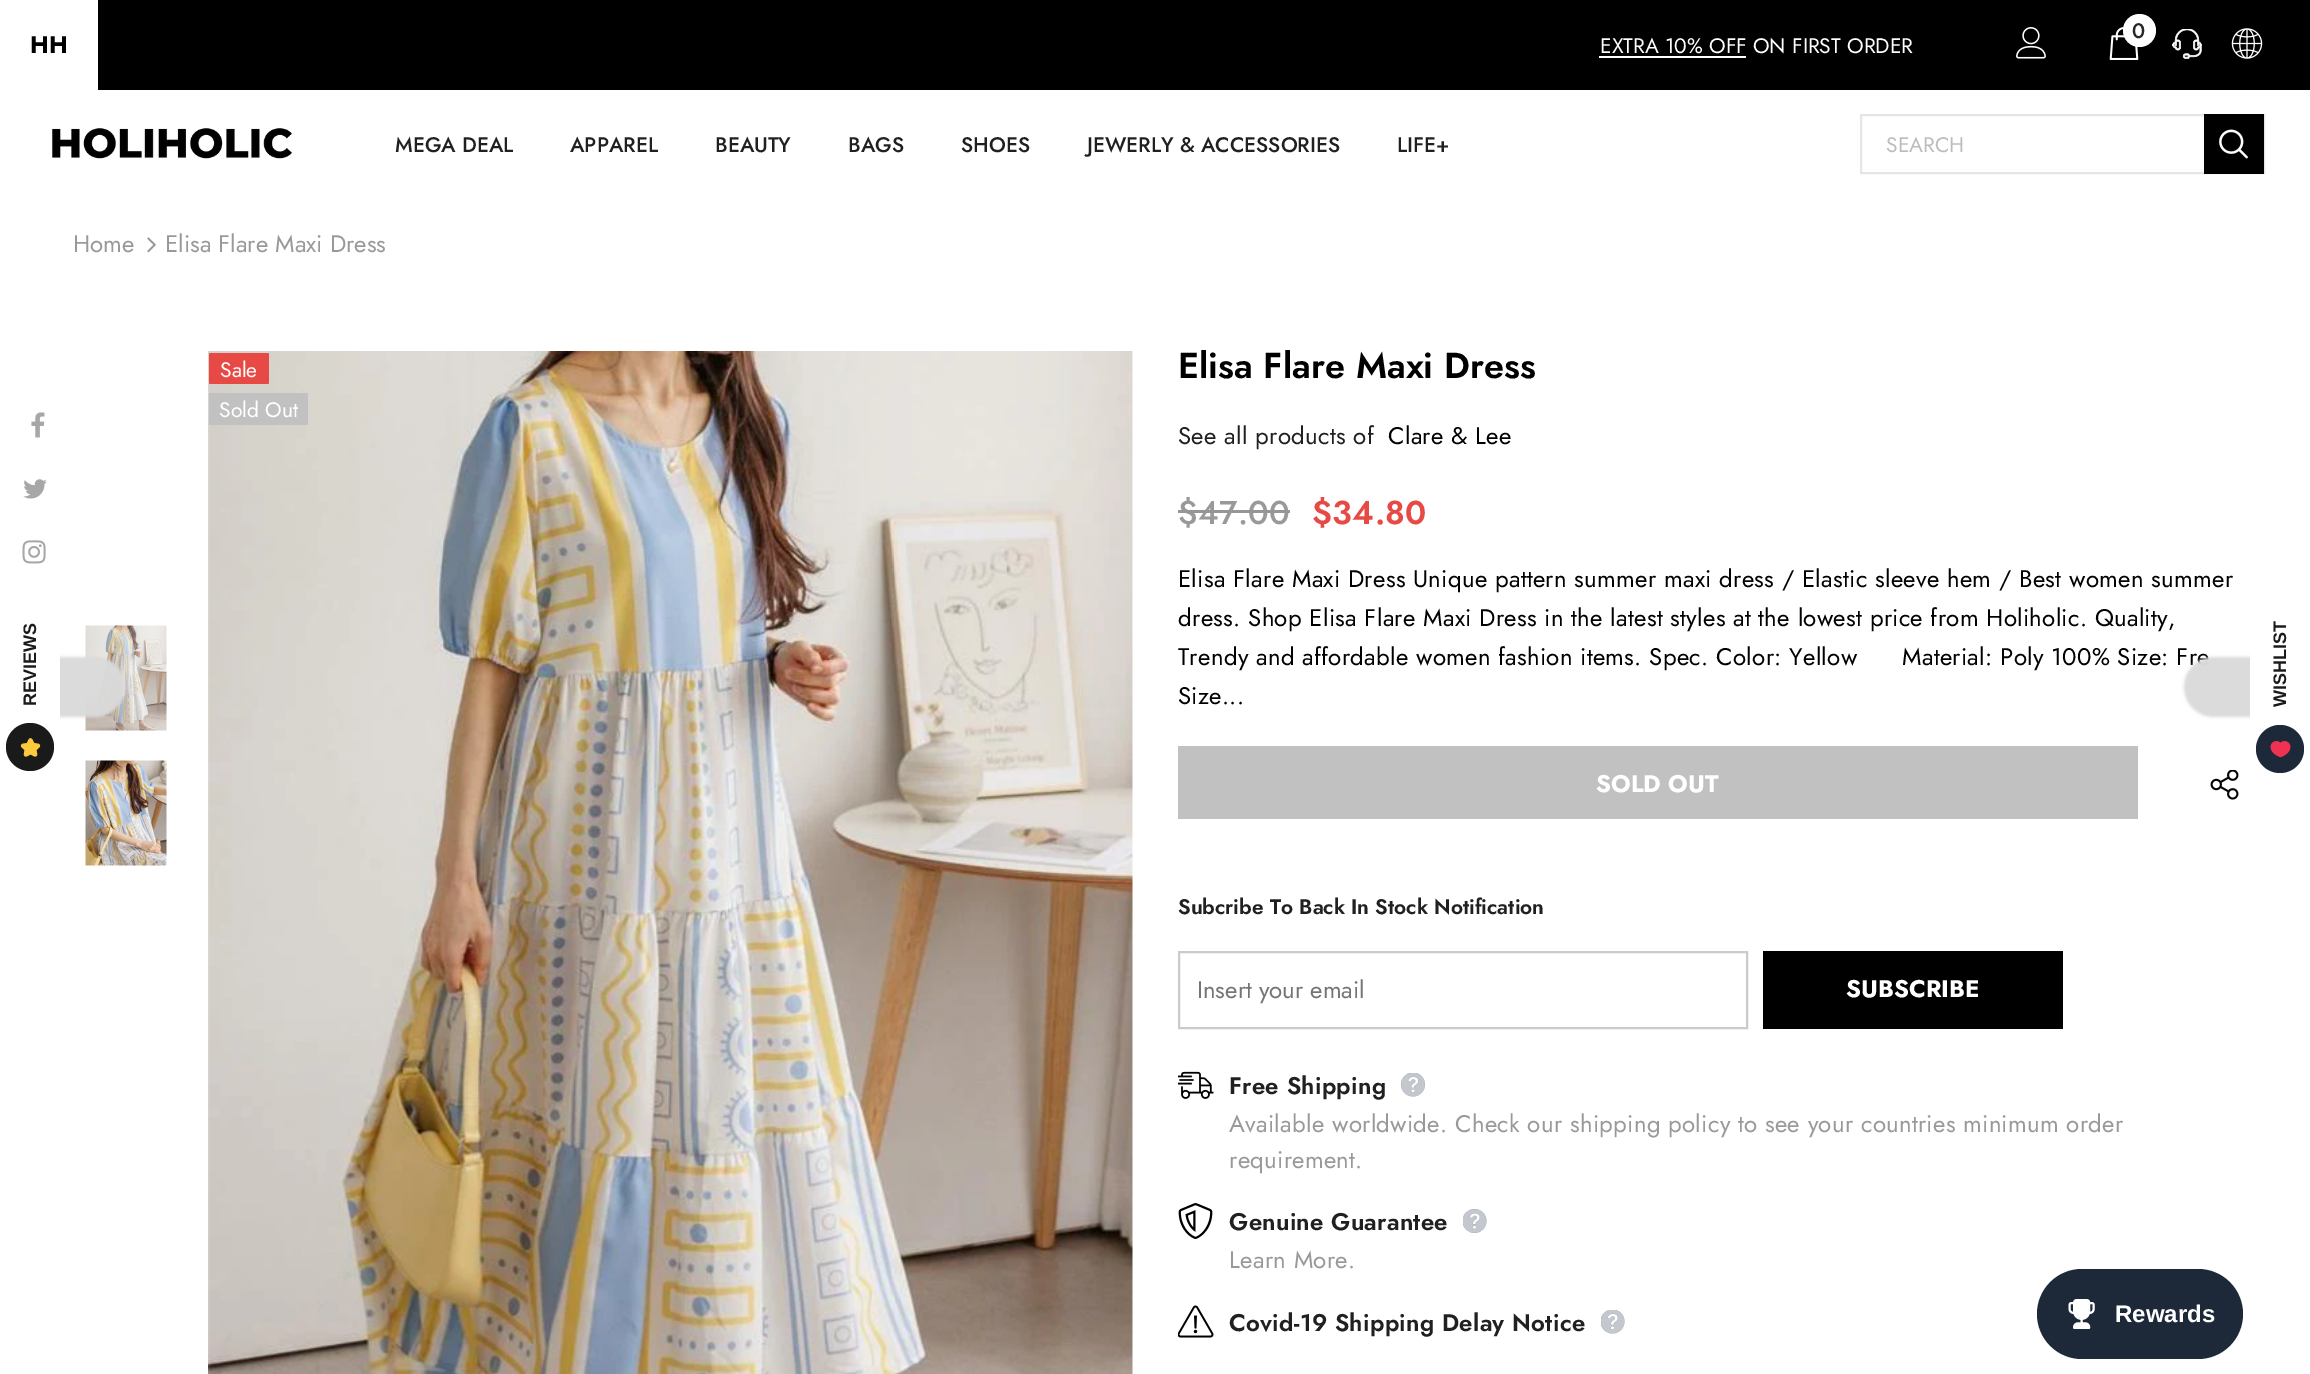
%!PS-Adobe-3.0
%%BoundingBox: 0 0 2310 1374
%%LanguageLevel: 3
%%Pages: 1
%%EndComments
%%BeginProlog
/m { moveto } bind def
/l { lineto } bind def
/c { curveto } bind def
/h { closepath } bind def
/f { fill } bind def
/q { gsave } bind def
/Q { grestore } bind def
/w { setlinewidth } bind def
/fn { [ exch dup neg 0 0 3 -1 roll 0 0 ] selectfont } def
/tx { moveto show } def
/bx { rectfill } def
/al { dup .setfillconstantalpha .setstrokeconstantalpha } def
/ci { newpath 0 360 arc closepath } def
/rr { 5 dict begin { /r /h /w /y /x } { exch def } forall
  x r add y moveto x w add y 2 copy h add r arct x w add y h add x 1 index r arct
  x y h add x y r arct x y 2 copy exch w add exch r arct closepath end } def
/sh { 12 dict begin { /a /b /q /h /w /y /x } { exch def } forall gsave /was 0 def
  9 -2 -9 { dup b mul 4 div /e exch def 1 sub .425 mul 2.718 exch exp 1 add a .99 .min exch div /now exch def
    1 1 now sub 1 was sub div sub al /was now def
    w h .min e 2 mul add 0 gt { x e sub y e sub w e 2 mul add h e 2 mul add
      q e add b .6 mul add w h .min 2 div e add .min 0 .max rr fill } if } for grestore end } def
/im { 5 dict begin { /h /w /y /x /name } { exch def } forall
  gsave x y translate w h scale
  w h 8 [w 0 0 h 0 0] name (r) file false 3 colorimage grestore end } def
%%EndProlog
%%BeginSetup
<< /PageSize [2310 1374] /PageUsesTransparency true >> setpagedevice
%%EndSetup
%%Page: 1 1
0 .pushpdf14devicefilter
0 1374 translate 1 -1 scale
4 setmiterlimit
1 setgray
0 0 2310 1374 bx
0 setgray
98 0 2212 90 bx
/Jost-Bold 24 fn
(HH) 30 53 tx
/Jost-Regular 21 fn
1 setgray
(EXTRA 10% OFF ON FIRST ORDER) 1600 53 tx
1599 56 147 2 bx
(image0.raw) 2016 27 30 32 im
(image1.raw) 2109 27 30 33 im
2139.5 30.5 16.5 ci f
/Jost-Medium 21 fn
0.153 setgray
(0) 2132 38 tx
(image2.raw) 2172 29 30 30 im
(image3.raw) 2231 28 32 31 im
(image4.raw) 52 128 240 31 im
0.125 setgray
(MEGA DEAL) 395 152 tx
(APPAREL) 570 152 tx
(BEAUTY) 715 152 tx
(BAGS) 848 152 tx
(SHOES) 961 152 tx
(JEWERLY & ACCESSORIES) 1087 152 tx
(LIFE+) 1397 152 tx
0.898 setgray
2 w
1861 115 403 58 rectstroke
/Jost-Regular 21 fn
0.737 setgray
(SEARCH) 1886 152 tx
0 setgray
2204 114 60 60 bx
(image5.raw) 2219 129 29 30 im
(image6.raw) 31 412 14 26 im
(image7.raw) 23 479 24 20 im
(image8.raw) 22 540 24 24 im
/Jost-Regular 24 fn
0.6 setgray
(Home) 73 252 tx
(image9.raw) 147 237 9 16 im
(Elisa Flare Maxi Dress) 165 252 tx
(image10.raw) 208 351 925 1023 im
0.906 0.29 0.271 setrgbcolor
209 353 60 31 1.5 rr f
/Jost-Regular 21 fn
1 setgray
(Sale) 220 377 tx
0.757 setgray
209 393 99 32 1.5 rr f
1 setgray
(Sold Out) 219 417 tx
(image11.raw) 85 625 82 106 im
(image12.raw) 85 760 82 106 im
/Jost-SemiBold 36 fn
0 setgray
(Elisa Flare Maxi Dress) 1178 378 tx
/Jost-Regular 24 fn
0.125 setgray
1178 444 m 0.3 0 (See all products of) ashow
0 setgray
1388 444 m 0.3 0 (Clare & Lee) ashow
/Jost-Medium 33 fn
0.6 setgray
1178 524 m 0.3 0 ($47.00) ashow
0.588 setgray
1178 510 112 3 bx
/Jost-SemiBold 33 fn
0.906 0.29 0.271 setrgbcolor
1312 524 m 0.3 0 ($34.80) ashow
/Jost-Regular 24 fn
0 setgray
1178 587 m 0.3 0 (Elisa Flare Maxi Dress Unique pattern summer maxi dress / Elastic sleeve hem / Best women summer) ashow
1178 626 m 0.3 0 (dress. Shop Elisa Flare Maxi Dress in the latest styles at the lowest price from Holiholic. Quality,) ashow
1178 665 m 0.3 0 (Trendy and affordable women fashion items. Spec. Color: Yellow      Material: Poly 100% Size: Fre) ashow
1178 704 m 0.3 0 (Size...) ashow
0.757 setgray
1178 746 960 73 bx
/Jost-Bold 24 fn
1 setgray
(SOLD OUT) 1596 792 tx
(image13.raw) 2210 770 29 30 im
/Jost-SemiBold 21 fn
0.125 setgray
(Subcribe To Back In Stock Notification) 1178 914 tx
0.796 setgray
1179 952 568 76 rectstroke
/Jost-Regular 24 fn
0.459 setgray
(Insert your email) 1197 998 tx
0 setgray
1763 951 300 78 bx
/Jost-Bold 24 fn
1 setgray
(SUBSCRIBE) 1846 997 tx
(image14.raw) 1178 1071 36 28 im
/Jost-SemiBold 24 fn
0.125 setgray
1229 1094 m 0.3 0 (Free Shipping) ashow
(image15.raw) 1401 1073 24 24 im
/Jost-Regular 24 fn
0.6 setgray
1229 1132 m 0.3 0 (Available worldwide. Check our shipping policy to see your countries minimum order) ashow
1229 1168 m 0.3 0 (requirement.) ashow
(image16.raw) 1178 1203 35 36 im
/Jost-SemiBold 24 fn
0.125 setgray
1229 1230 m 0.3 0 (Genuine Guarantee) ashow
(image17.raw) 1463 1209 24 24 im
/Jost-Regular 24 fn
0.6 setgray
1229 1268 m 0.3 0 (Learn More.) ashow
(image18.raw) 1178 1305 36 33 im
/Jost-SemiBold 24 fn
0.125 setgray
1229 1331 m 0.3 0 (Covid-19 Shipping Delay Notice) ashow
(image19.raw) 1601 1310 24 24 im
0.855 setgray
-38 657 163 60 33 1.5 1 sh
1 setgray
0 782 m 0 592 l 27 592 l 45 592 60 607 60 626 c 60 748 l 60 767 45 782 27 782 c h f
/LiberationSans-Bold 18 fn
0.102 setgray
q 36 706 translate -90 rotate 0 0 m (REVIEWS) show Q
30 747 24 ci f
(image20.raw) 20 738 21 19 im
q
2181 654 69 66 rectclip
0.855 setgray
2184 657 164 60 33 1.5 1 sh
Q
q 2286 707 translate -90 rotate 0 0 m (WISHLIST) show Q
0.114 0.161 0.224 setrgbcolor
2280 749 24 ci f
(image21.raw) 2270 741 21 17 im
2037 1269 206 90 45 rr f
(image22.raw) 2068 1299 27 30 im
/LiberationSans-Bold 24 fn
1 setgray
(Rewards) 2115 1322 tx
.poppdf14devicefilter showpage
%%EOF
